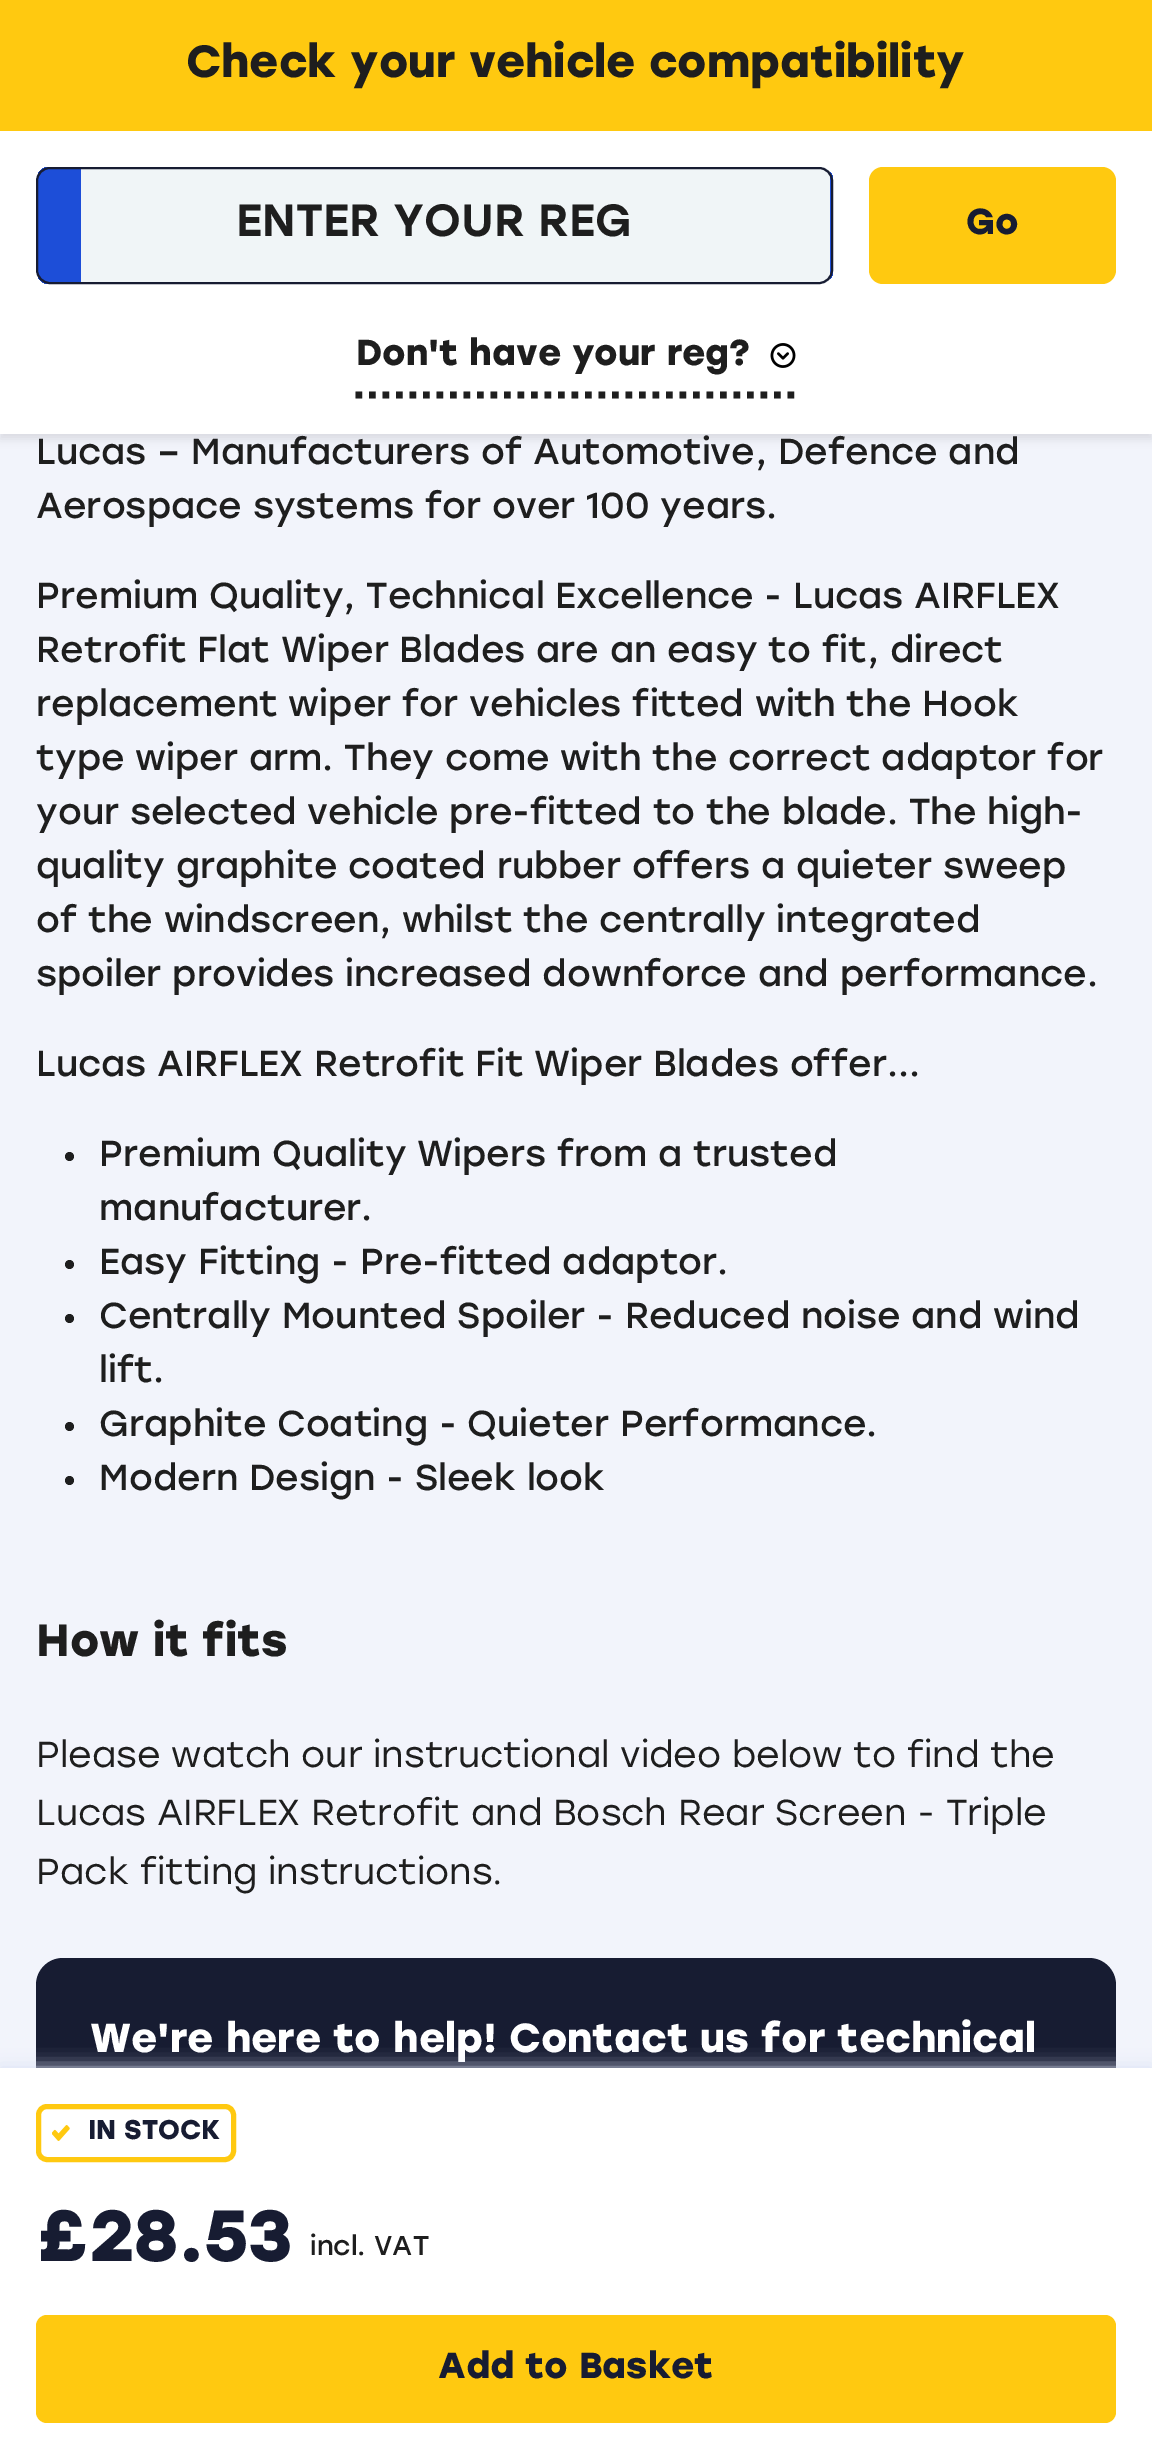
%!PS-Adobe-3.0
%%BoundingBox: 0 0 1152 2458
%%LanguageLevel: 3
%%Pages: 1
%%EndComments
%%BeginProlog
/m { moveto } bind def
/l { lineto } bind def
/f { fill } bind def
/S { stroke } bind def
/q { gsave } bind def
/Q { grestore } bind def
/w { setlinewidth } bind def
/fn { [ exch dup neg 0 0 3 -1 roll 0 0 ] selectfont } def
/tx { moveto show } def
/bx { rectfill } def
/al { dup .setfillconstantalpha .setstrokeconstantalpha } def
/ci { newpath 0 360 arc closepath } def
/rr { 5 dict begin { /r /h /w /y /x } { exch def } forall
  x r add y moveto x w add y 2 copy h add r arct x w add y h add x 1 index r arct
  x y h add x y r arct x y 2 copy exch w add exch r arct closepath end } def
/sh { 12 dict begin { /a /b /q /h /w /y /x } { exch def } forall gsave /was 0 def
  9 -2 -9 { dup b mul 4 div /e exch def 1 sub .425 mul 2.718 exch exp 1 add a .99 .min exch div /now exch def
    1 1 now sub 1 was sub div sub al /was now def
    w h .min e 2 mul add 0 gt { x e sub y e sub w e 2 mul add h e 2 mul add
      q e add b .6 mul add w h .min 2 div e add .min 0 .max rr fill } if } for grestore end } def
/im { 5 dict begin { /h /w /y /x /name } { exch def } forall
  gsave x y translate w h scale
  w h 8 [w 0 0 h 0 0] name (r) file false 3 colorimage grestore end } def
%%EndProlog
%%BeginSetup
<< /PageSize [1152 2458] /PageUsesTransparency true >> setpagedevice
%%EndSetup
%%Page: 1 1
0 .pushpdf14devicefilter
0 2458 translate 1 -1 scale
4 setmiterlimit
0.949 0.957 0.984 setrgbcolor
0 0 1152 2458 bx
0 setgray
0 5 1152 434 0 4.5 0.1 sh
1 setgray
0 131 1152 303 bx
1 0.788 0.063 setrgbcolor
0 0 1152 131 bx
/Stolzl-Bold 45 fn
0.118 setgray
(Check your vehicle compatibility) 186 77 tx
q
36 167 797 117 14 rr clip newpath
0.114 0.306 0.847 setrgbcolor
38 167 43 117 bx
0.941 0.961 0.969 setrgbcolor
81 167 749 117 bx
0.114 0.306 0.847 setrgbcolor
830 167 3 117 bx
Q
0.09 0.11 0.196 setrgbcolor
2 w
37 168 795 115 13 rr S
/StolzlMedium-Medium 45 fn
0.118 setgray
(ENTER YOUR REG) 236 236 tx
1 0.788 0.063 setrgbcolor
869 167 247 117 14 rr f
/Stolzl-Bold 36 fn
0.09 0.11 0.196 setrgbcolor
(Go) 966 234 tx
0.118 setgray
6.8 w
[6.75 6.75] 0 setdash
355.5 395 m 796.5 395 l S
(Don't have your reg?) 356 365 tx
(image0.raw) 770 343 26 25 im
/Stolzl-Regular 36 fn
(Lucas – Manufacturers of Automotive, Defence and) 36 464 tx
(Aerospace systems for over 100 years.) 36 518 tx
(Premium Quality, Technical Excellence - Lucas AIRFLEX) 36 608 tx
(Retrofit Flat Wiper Blades are an easy to fit, direct) 36 662 tx
(replacement wiper for vehicles fitted with the Hook) 36 716 tx
(type wiper arm. They come with the correct adaptor for) 36 770 tx
(your selected vehicle pre-fitted to the blade. The high-) 36 824 tx
(quality graphite coated rubber offers a quieter sweep) 36 878 tx
(of the windscreen, whilst the centrally integrated) 36 932 tx
(spoiler provides increased downforce and performance.) 36 986 tx
(Lucas AIRFLEX Retrofit Fit Wiper Blades offer...) 36 1076 tx
69.5 1156.5 4.5 ci f
(Premium Quality Wipers from a trusted) 99 1166 tx
(manufacturer.) 99 1220 tx
69.5 1264.5 4.5 ci f
(Easy Fitting - Pre-fitted adaptor.) 99 1274 tx
69.5 1318.5 4.5 ci f
(Centrally Mounted Spoiler - Reduced noise and wind) 99 1328 tx
(lift.) 99 1382 tx
69.5 1426.5 4.5 ci f
(Graphite Coating - Quieter Performance.) 99 1436 tx
69.5 1480.5 4.5 ci f
(Modern Design - Sleek look) 99 1490 tx
/Stolzl-Bold 45 fn
(How it fits) 36 1656 tx
/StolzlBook-Regular 36 fn
(Please watch our instructional video below to find the) 36 1767 tx
(Lucas AIRFLEX Retrofit and Bosch Rear Screen - Triple) 36 1825 tx
(Pack fitting instructions.) 36 1884 tx
0.09 0.11 0.196 setrgbcolor
36 1958 1080 378 27 rr f
/Stolzl-Bold 40.5 fn
1 setgray
(We're here to help! Contact us for technical) 90 2052 tx
0.851 0.882 0.957 setrgbcolor
0 2068 1152 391 0 9 1 sh
1 setgray
0 2068 1152 390 bx
1 0.788 0.063 setrgbcolor
5 w
[] 0 setdash
38.5 2106.5 195 53 8.5 rr S
(image1.raw) 52 2125 18 16 im
/Stolzl-Bold 27 fn
0.09 0.11 0.196 setrgbcolor
(IN STOCK) 88 2139 tx
/Stolzl-Bold 72 fn
(£28.53) 36 2261 tx
/Stolzl-Regular 27 fn
0.118 setgray
(incl. VAT) 310 2255 tx
1 0.788 0.063 setrgbcolor
36 2315 1080 108 11 rr f
/Stolzl-Bold 36 fn
0.09 0.11 0.196 setrgbcolor
(Add to Basket) 438 2378 tx
.poppdf14devicefilter showpage
%%EOF
